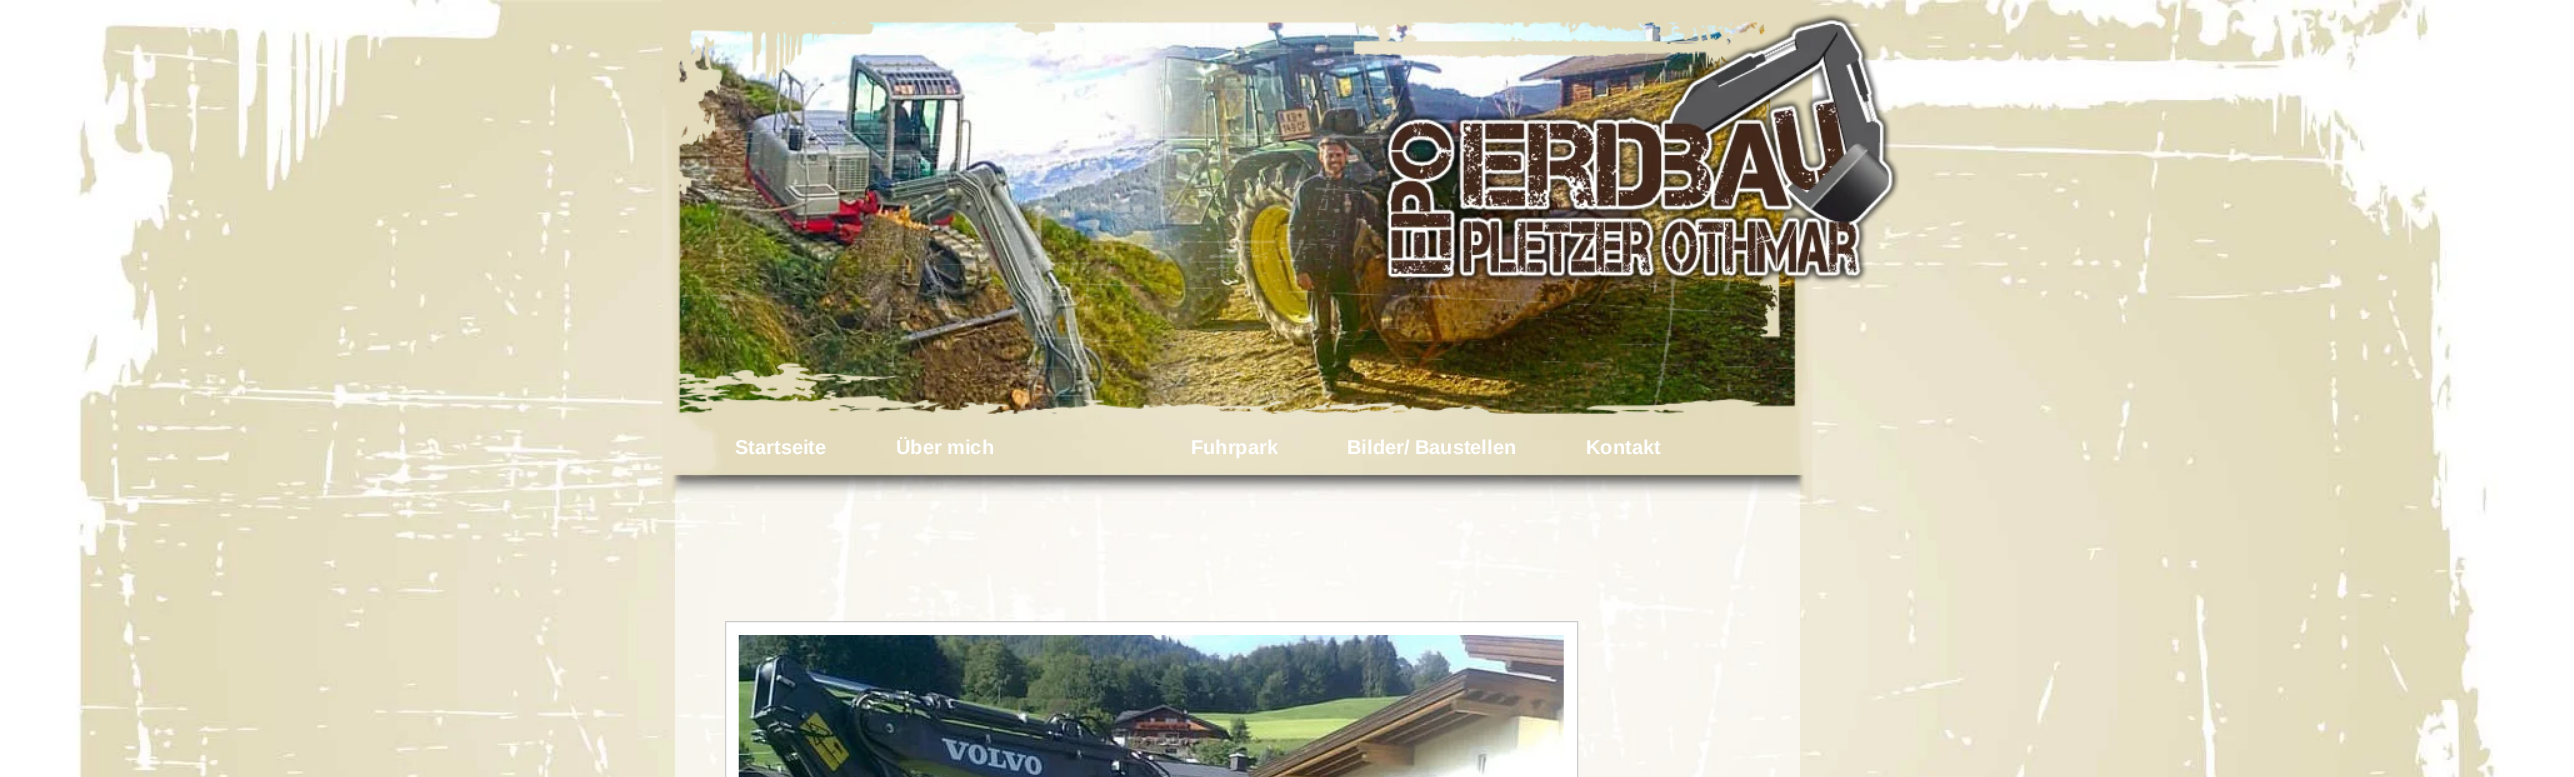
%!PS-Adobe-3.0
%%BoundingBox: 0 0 2574 777
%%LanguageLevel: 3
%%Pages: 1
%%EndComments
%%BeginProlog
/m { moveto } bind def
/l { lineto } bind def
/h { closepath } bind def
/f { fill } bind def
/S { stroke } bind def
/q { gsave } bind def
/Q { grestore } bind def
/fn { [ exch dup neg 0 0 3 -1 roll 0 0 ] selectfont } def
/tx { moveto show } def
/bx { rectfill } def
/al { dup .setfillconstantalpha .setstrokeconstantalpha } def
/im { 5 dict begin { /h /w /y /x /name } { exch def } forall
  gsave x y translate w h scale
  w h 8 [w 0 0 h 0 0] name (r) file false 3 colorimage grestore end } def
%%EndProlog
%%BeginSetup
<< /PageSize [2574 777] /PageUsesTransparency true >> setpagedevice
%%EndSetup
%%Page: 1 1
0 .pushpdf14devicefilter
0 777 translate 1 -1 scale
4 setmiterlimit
1 setgray
0 0 2574 777 bx
(image0.raw) 74 0 2424 777 im
(image2.raw) 678 22 1118 392 im
0.6 al
675 502 1125 275 bx
1 al
(image1.raw) 662 0 1151 503 im
(image3.raw) 1381 13 518 271 im
/LiberationSans-Bold 20 fn
(Startseite) 735 454 tx
(Über mich) 896 454 tx
(Fuhrpark) 1191 454 tx
(Bilder/ Baustellen) 1347 454 tx
(Kontakt) 1586 454 tx
725.5 621.5 m 1577.5 621.5 l 1577.5 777.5 l 725.5 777.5 l h q f Q
0.8 setgray
S
(image4.raw) 738 635 826 142 im
.poppdf14devicefilter showpage
%%EOF
